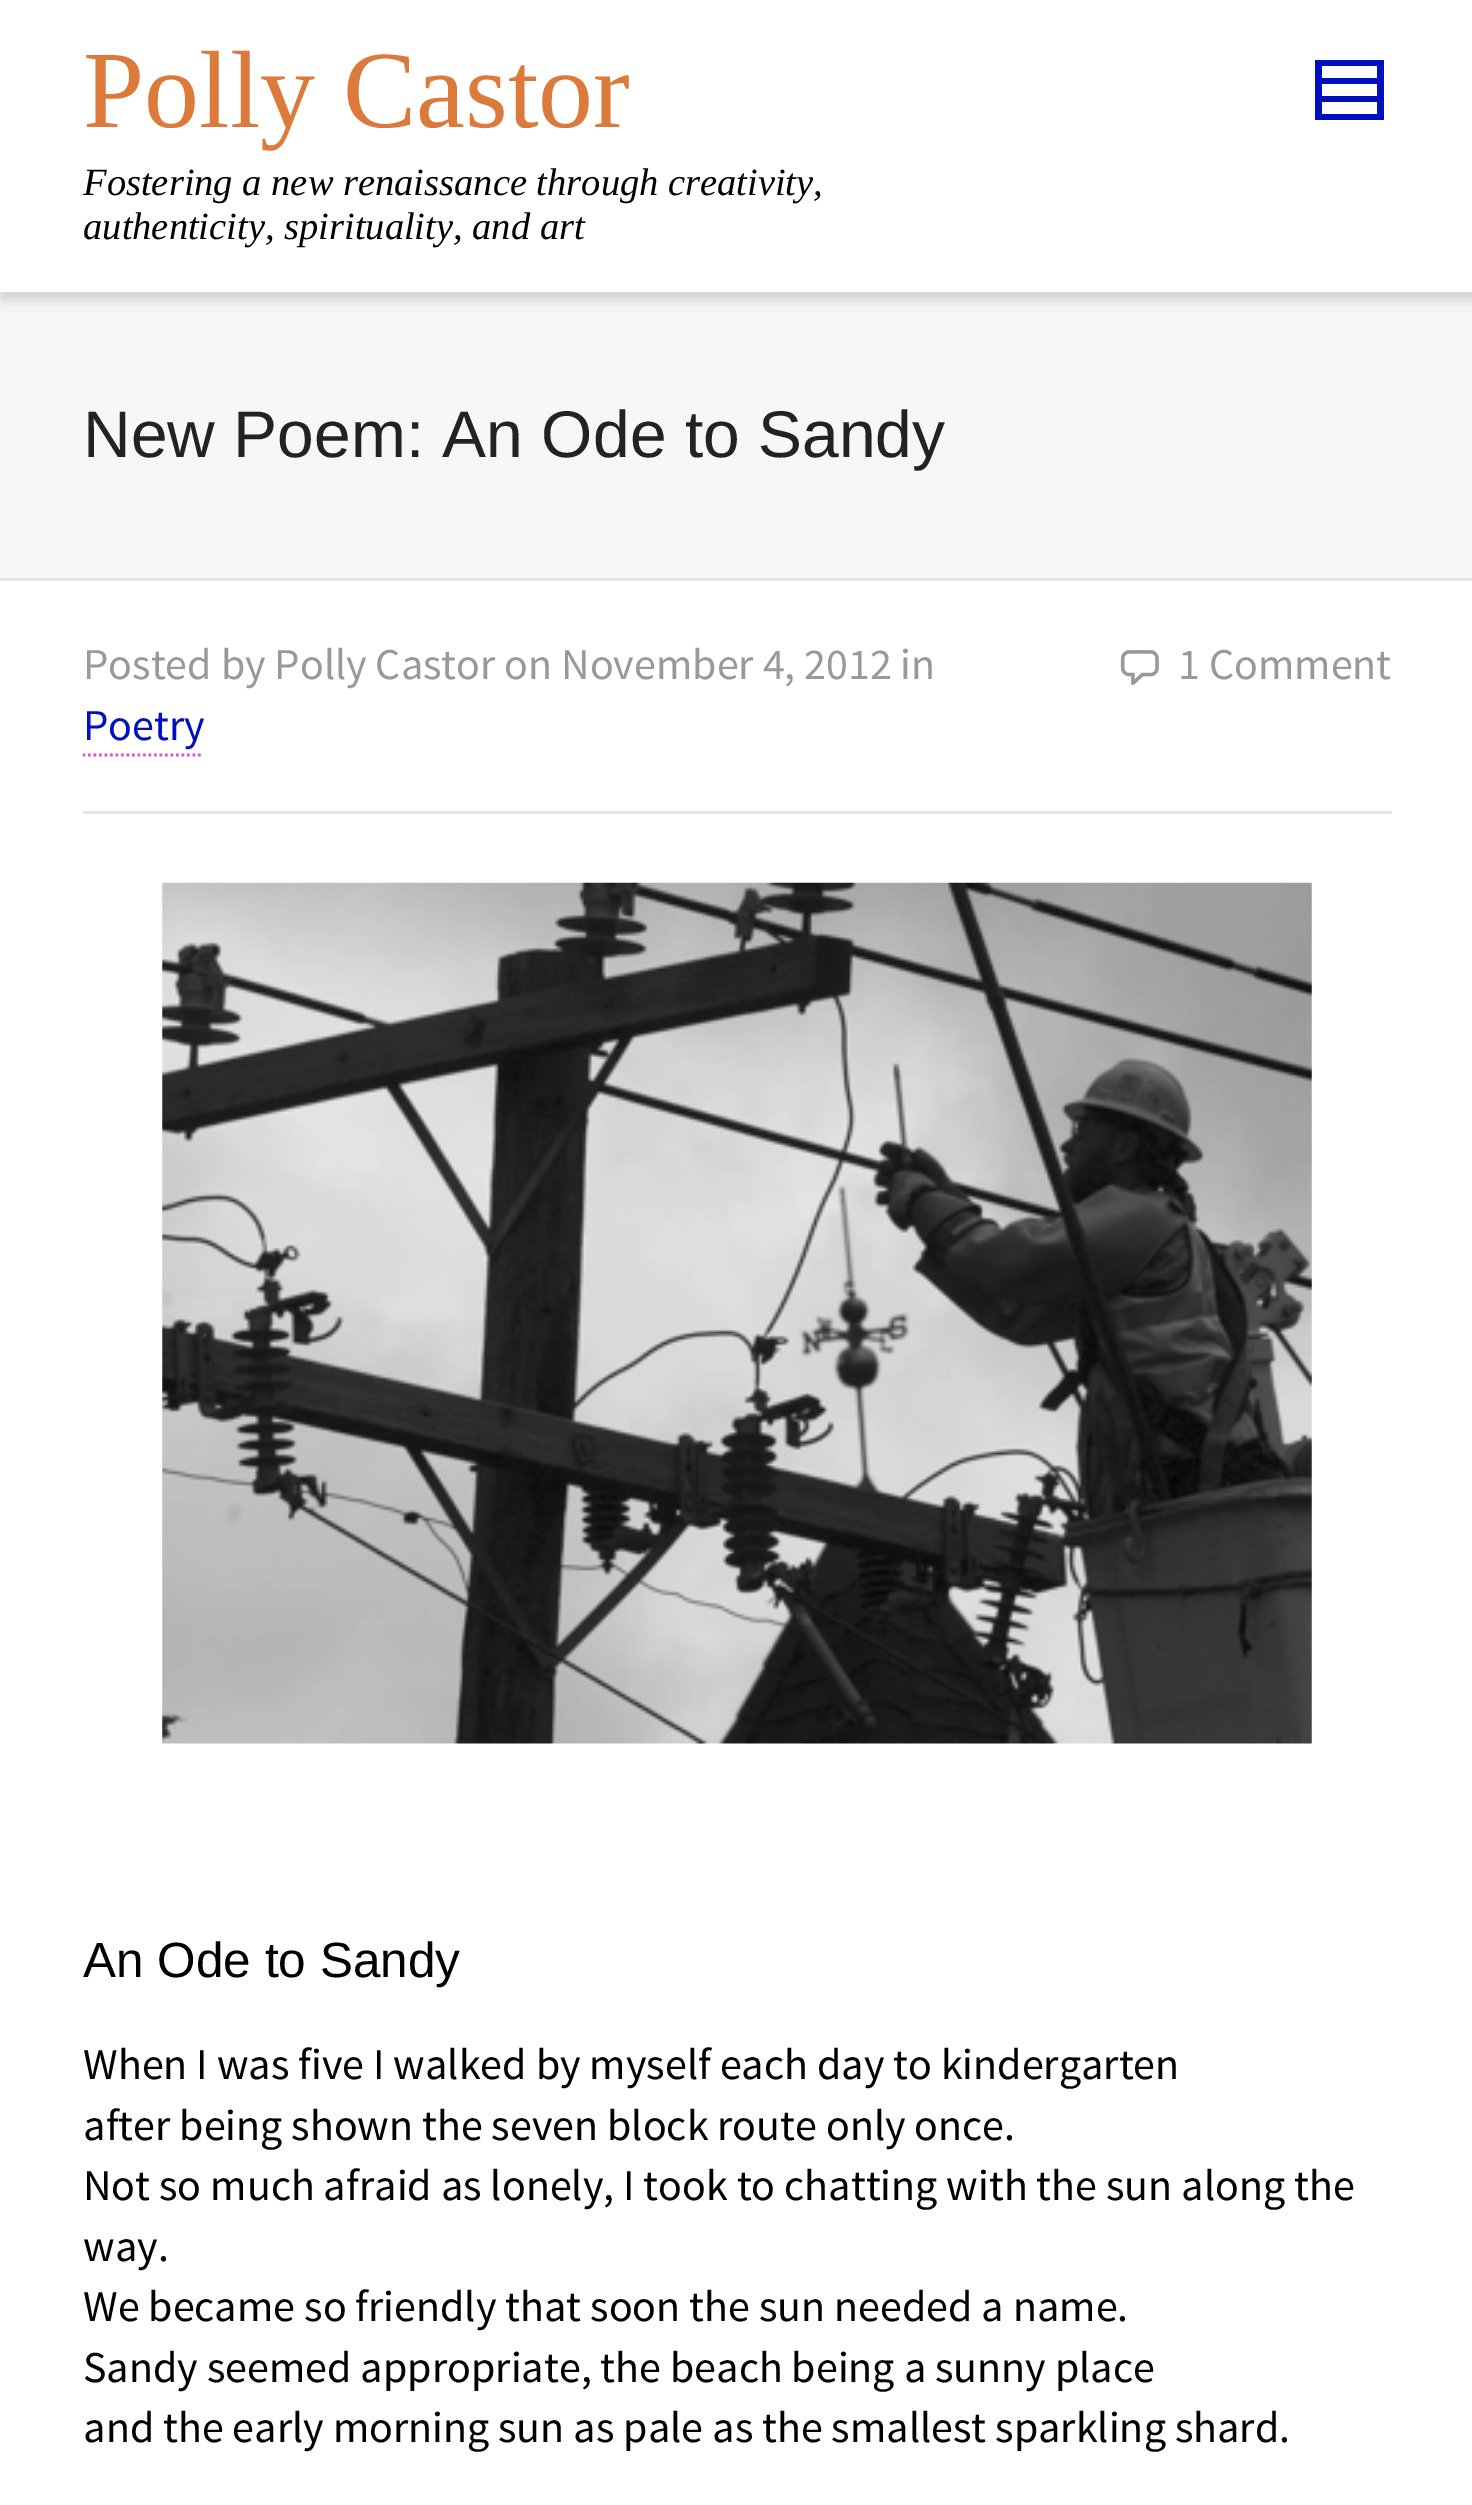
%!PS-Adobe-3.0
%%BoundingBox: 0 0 1472 2505
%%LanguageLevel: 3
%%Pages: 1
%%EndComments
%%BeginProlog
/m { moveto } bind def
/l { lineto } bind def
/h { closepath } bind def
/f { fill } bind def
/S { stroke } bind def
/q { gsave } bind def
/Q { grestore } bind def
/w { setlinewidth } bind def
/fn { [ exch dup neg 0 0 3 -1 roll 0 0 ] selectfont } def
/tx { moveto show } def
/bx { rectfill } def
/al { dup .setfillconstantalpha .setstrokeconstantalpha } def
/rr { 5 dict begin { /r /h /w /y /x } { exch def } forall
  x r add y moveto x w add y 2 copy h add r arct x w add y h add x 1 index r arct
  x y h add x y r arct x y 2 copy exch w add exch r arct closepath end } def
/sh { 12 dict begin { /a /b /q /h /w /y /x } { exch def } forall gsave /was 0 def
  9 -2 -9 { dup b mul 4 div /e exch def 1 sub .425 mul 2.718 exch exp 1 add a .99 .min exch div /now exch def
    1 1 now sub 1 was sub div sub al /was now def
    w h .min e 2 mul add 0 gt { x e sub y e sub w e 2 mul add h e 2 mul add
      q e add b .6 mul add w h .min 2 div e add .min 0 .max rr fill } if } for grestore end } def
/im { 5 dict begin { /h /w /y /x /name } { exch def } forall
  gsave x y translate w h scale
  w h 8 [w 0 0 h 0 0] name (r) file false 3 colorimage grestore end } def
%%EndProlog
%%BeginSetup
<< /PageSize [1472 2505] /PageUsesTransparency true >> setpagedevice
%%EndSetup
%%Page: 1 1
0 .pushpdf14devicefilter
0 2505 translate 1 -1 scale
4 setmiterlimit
1 setgray
0 0 1472 2505 bx
0.969 setgray
0 292 1472 286 bx
0 setgray
0 8 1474 292 0 7 0.1 sh
0 8 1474 292 0 7 0.05 sh
1 setgray
0 0 1472 292 bx
/LiberationSerif-Regular 110 fn
0.863 0.478 0.231 setrgbcolor
(Polly Castor) 83 127 tx
/LiberationSerif-Italic 38.5 fn
0 setgray
(Fostering a new renaissance through creativity,) 83 195 tx
(authenticity, spirituality, and art) 83 239 tx
0 0.063 0.757 setrgbcolor
1315 60 m 1384 60 l 1384 120 l 1315 120 l h 1377 66 m 1322 66 l 1322 78 l 1377 78 l h 1377 84 m 1322 84 l 1322 96 l 1377 96 l h 1322 114 m 1377 114 l 1377 102 l 1322 102 l h f
0.894 setgray
0 578 1472 3 bx
/LiberationSans-Regular 66 fn
0.133 setgray
(New Poem: An Ode to Sandy) 83 457 tx
0.894 setgray
83 811 1309 3 bx
/SourceSansPro-Regular 44 fn
0.6 setgray
(Posted by Polly Castor on November 4, 2012 in) 83 679 tx
0 0.063 0.757 setrgbcolor
(Poetry) 83 740 tx
q
83 580 1309 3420 rectclip
0.886 0.314 0.886 setrgbcolor
2.8 w
[2.75 2.75] 0 setdash
82.5 755 m 203.5 755 l S
Q
(image0.raw) 1120 650 39 36 im
0.6 setgray
(1 Comment) 1178 679 tx
(image1.raw) 162 882 1150 862 im
/LiberationSans-Regular 49.5 fn
0 setgray
(An Ode to Sandy) 83 1977 tx
/SourceSansPro-Regular 44 fn
(When I was five I walked by myself each day to kindergarten) 83 2079 tx
(after being shown the seven block route only once.) 83 2140 tx
(Not so much afraid as lonely, I took to chatting with the sun along the) 83 2200 tx
(way.) 83 2261 tx
(We became so friendly that soon the sun needed a name.) 83 2321 tx
(Sandy seemed appropriate, the beach being a sunny place) 83 2382 tx
(and the early morning sun as pale as the smallest sparkling shard.) 83 2442 tx
.poppdf14devicefilter showpage
%%EOF
